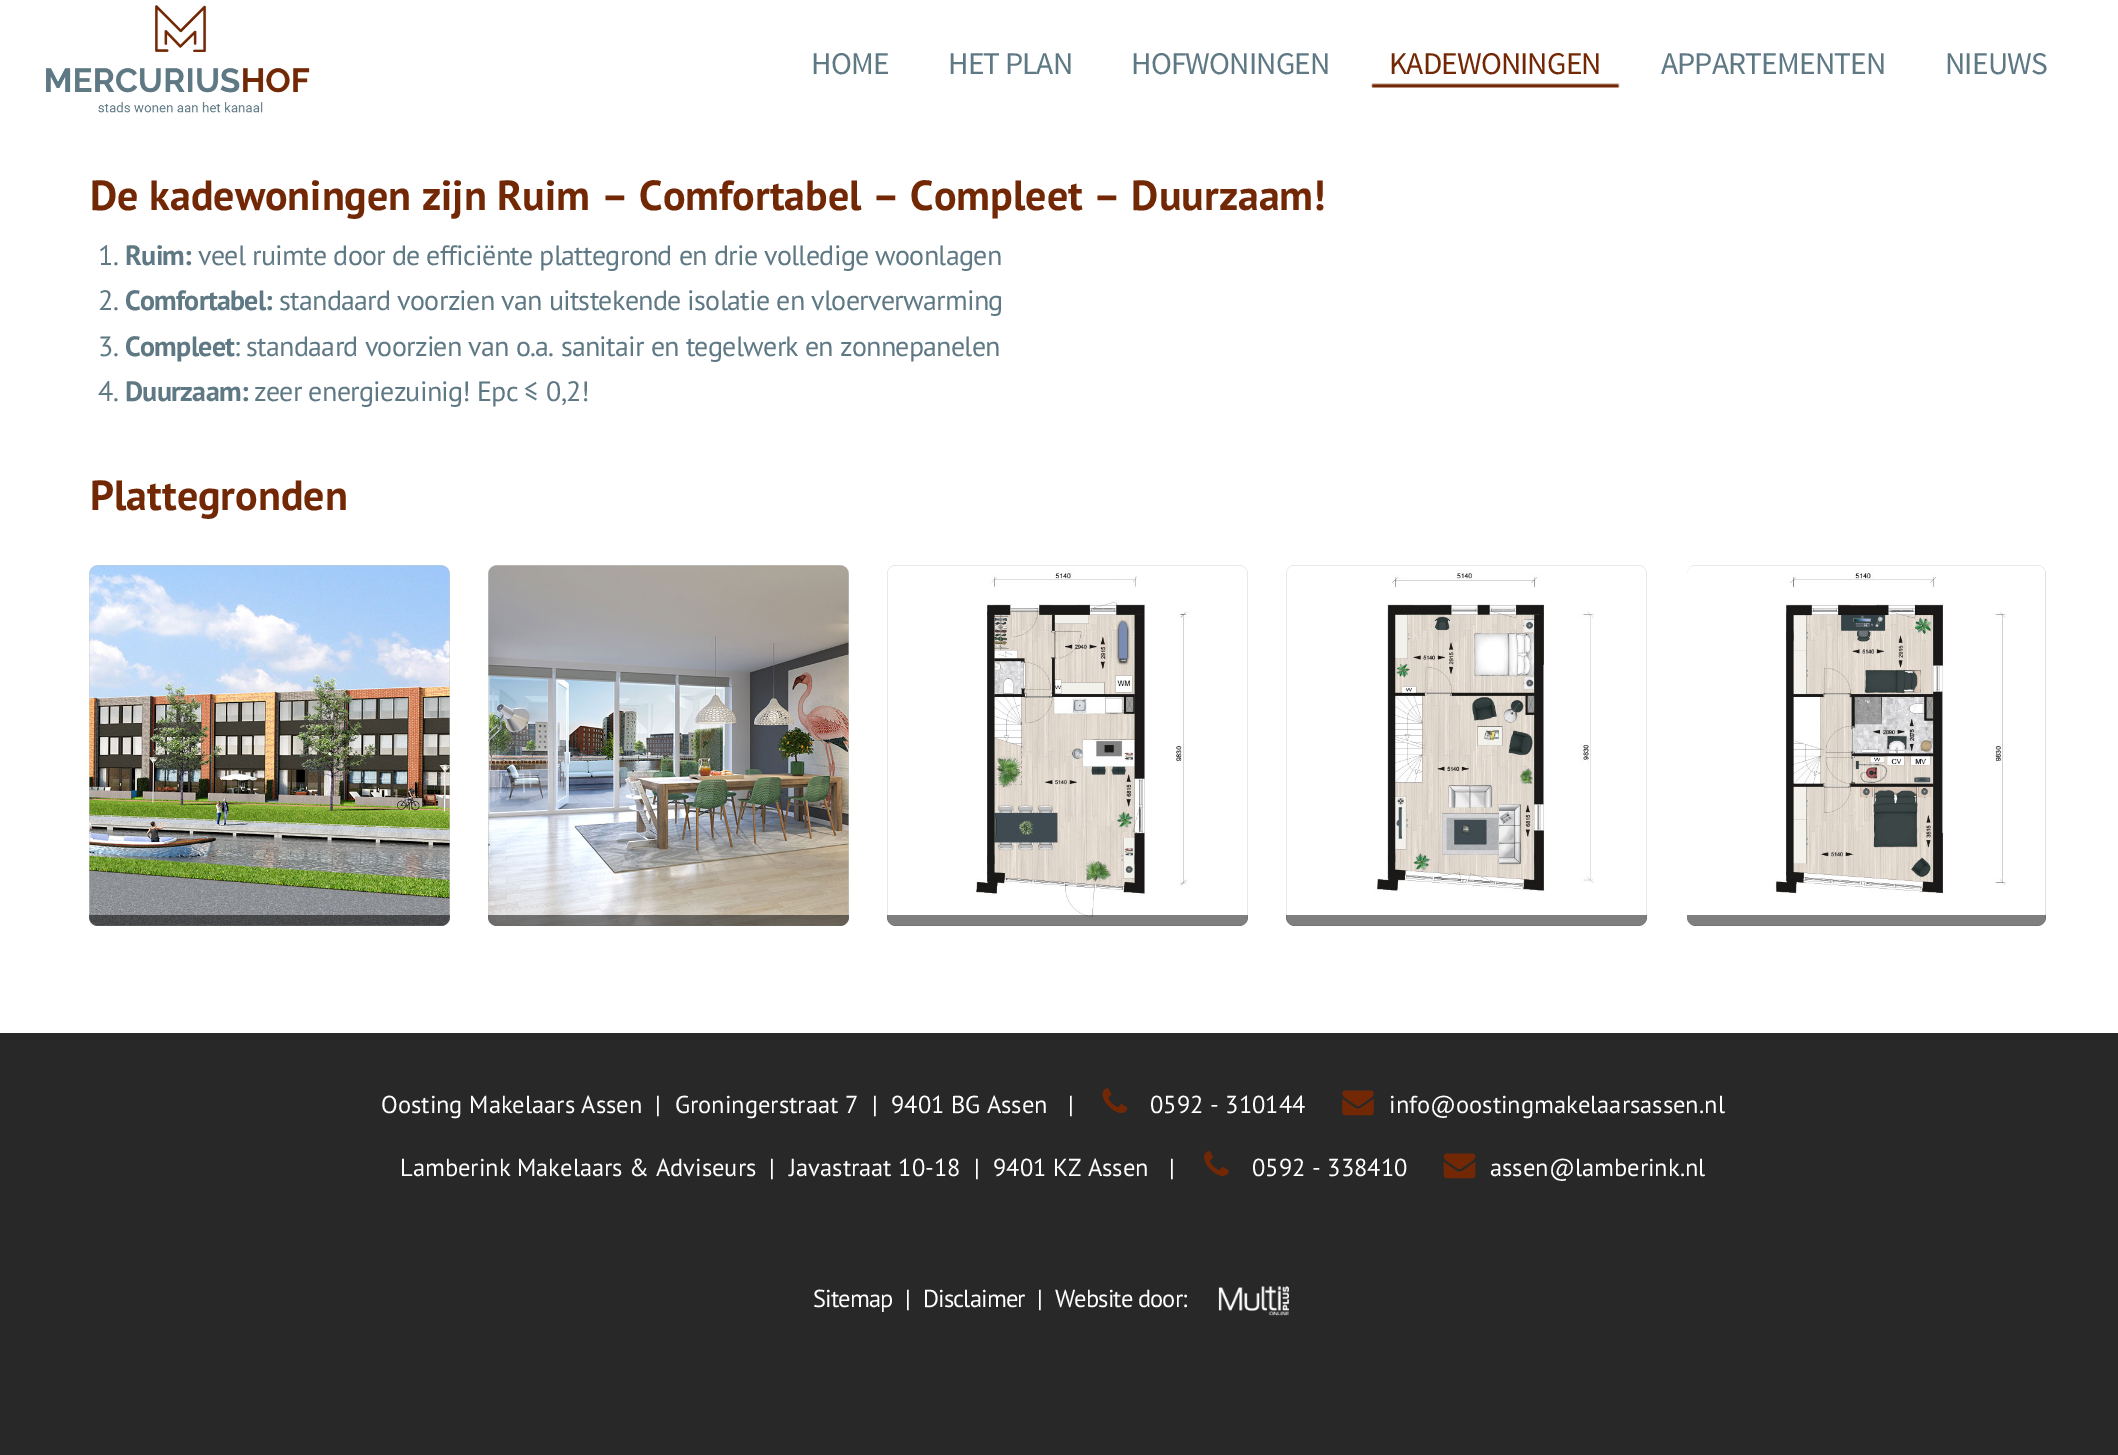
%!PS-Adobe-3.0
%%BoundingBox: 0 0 2118 1455
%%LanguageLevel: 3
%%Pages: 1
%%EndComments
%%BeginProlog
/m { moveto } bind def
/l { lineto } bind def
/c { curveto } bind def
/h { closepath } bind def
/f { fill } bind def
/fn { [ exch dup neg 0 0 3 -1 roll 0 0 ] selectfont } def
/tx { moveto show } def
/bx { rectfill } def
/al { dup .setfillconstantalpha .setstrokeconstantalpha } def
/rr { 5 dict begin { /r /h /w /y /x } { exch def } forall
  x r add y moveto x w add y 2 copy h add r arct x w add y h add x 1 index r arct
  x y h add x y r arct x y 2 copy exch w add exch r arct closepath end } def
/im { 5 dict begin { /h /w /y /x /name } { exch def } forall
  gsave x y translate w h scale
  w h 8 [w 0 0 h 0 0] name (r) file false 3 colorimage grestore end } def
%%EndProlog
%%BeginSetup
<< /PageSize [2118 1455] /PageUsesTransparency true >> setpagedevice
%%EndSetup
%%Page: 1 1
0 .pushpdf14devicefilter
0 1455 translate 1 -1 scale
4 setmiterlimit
1 setgray
0 0 2118 1455 bx
(image0.raw) 46 5 264 108 im
/SourceSansPro-Regular 31.5 fn
0.369 0.471 0.518 setrgbcolor
811 74 m -0.9 0 (HOME) ashow
948 74 m -0.9 0 (HET PLAN) ashow
1131 74 m -0.9 0 (HOFWONINGEN) ashow
(image1.raw) 1371 83 249 5 im
0.451 0.157 0.02 setrgbcolor
1389 74 m -0.9 0 (KADEWONINGEN) ashow
0.369 0.471 0.518 setrgbcolor
1661 74 m -0.9 0 (APPARTEMENTEN) ashow
1945 74 m -0.9 0 (NIEUWS) ashow
/PTSans-Bold 42 fn
0.451 0.157 0.02 setrgbcolor
(De kadewoningen zijn Ruim – Comfortabel – Compleet – Duurzaam!) 90 210 tx
/PTSans-Regular 28 fn
0.369 0.471 0.518 setrgbcolor
98 265 m -0.7 0 (1.) ashow
/PTSans-Bold 28 fn
125 265 m -0.7 0 (Ruim:) ashow
/PTSans-Regular 28 fn
198 265 m -0.7 0 (veel ruimte door de efficiënte plattegrond en drie volledige woonlagen) ashow
98 310 m -0.7 0 (2.) ashow
/PTSans-Bold 28 fn
125 310 m -0.7 0 (Comfortabel:) ashow
/PTSans-Regular 28 fn
279 310 m -0.7 0 (standaard voorzien van uitstekende isolatie en vloerverwarming) ashow
98 356 m -0.7 0 (3.) ashow
/PTSans-Bold 28 fn
125 356 m -0.7 0 (Compleet) ashow
/PTSans-Regular 28 fn
234 356 m -0.7 0 (: standaard voorzien van o.a. sanitair en tegelwerk en zonnepanelen) ashow
98 401 m -0.7 0 (4.) ashow
/PTSans-Bold 28 fn
125 401 m -0.7 0 (Duurzaam:) ashow
/PTSans-Regular 28 fn
254 401 m -0.7 0 (zeer energiezuinig! Epc ≤) ashow
546 401 m -0.7 0 (0,2!) ashow
/PTSans-Bold 42 fn
0.451 0.157 0.02 setrgbcolor
(Plattegronden) 90 510 tx
0.8 setgray
89 565 361 361 9 rr f
(image2.raw) 89 565 361 361 im
0.5 al
0 setgray
89 915 m 450 915 l 450 917 l 450 922 446 926 441 926 c 98 926 l 93 926 89 922 89 917 c h f
1 al
0.8 setgray
488 565 361 361 9 rr f
(image3.raw) 488 565 361 361 im
0.5 al
0 setgray
488 915 m 849 915 l 849 917 l 849 922 845 926 840 926 c 497 926 l 492 926 488 922 488 917 c h f
1 al
0.8 setgray
887 565 361 361 9 rr f
(image4.raw) 887 565 361 361 im
0.5 al
0 setgray
887 915 m 1248 915 l 1248 917 l 1248 922 1244 926 1239 926 c 896 926 l 891 926 887 922 887 917 c h f
1 al
0.8 setgray
1286 565 361 361 9 rr f
(image5.raw) 1286 565 361 361 im
0.5 al
0 setgray
1286 915 m 1647 915 l 1647 917 l 1647 922 1643 926 1638 926 c 1295 926 l 1290 926 1286 922 1286 917 c h f
1 al
0.8 setgray
1687 565 359 361 9 rr f
(image6.raw) 1687 565 359 361 im
0.5 al
0 setgray
1687 915 m 2046 915 l 2046 917 l 2046 922 2042 926 2037 926 c 1696 926 l 1691 926 1687 922 1687 917 c h f
1 al
0.157 setgray
0 1033 2118 422 bx
/PTSans-Regular 24.5 fn
1 setgray
(Oosting Makelaars Assen) 381 1113 tx
(|) 655 1113 tx
(Groningerstraat 7) 675 1113 tx
(|) 872 1113 tx
(9401 BG Assen) 891 1113 tx
(|) 1068 1113 tx
(image7.raw) 1102 1088 26 25 im
(0592 - 310144) 1150 1113 tx
(image8.raw) 1342 1090 32 26 im
(info@oostingmakelaarsassen.nl) 1389 1113 tx
(Lamberink Makelaars & Adviseurs) 400 1176 tx
(|) 769 1176 tx
(Javastraat 10-18) 789 1176 tx
(|) 974 1176 tx
(9401 KZ Assen) 993 1176 tx
(|) 1169 1176 tx
(image9.raw) 1204 1151 25 25 im
(0592 - 338410) 1252 1176 tx
(image10.raw) 1443 1153 33 26 im
(assen@lamberink.nl) 1490 1176 tx
813 1307 m -0.9 0 (Sitemap) ashow
905 1307 m -0.9 0 (|) ashow
923 1307 m -0.9 0 (Disclaimer) ashow
1037 1307 m -0.9 0 (|) ashow
1055 1307 m -0.9 0 (Website door:) ashow
(image11.raw) 1218 1286 71 30 im
.poppdf14devicefilter showpage
%%EOF
